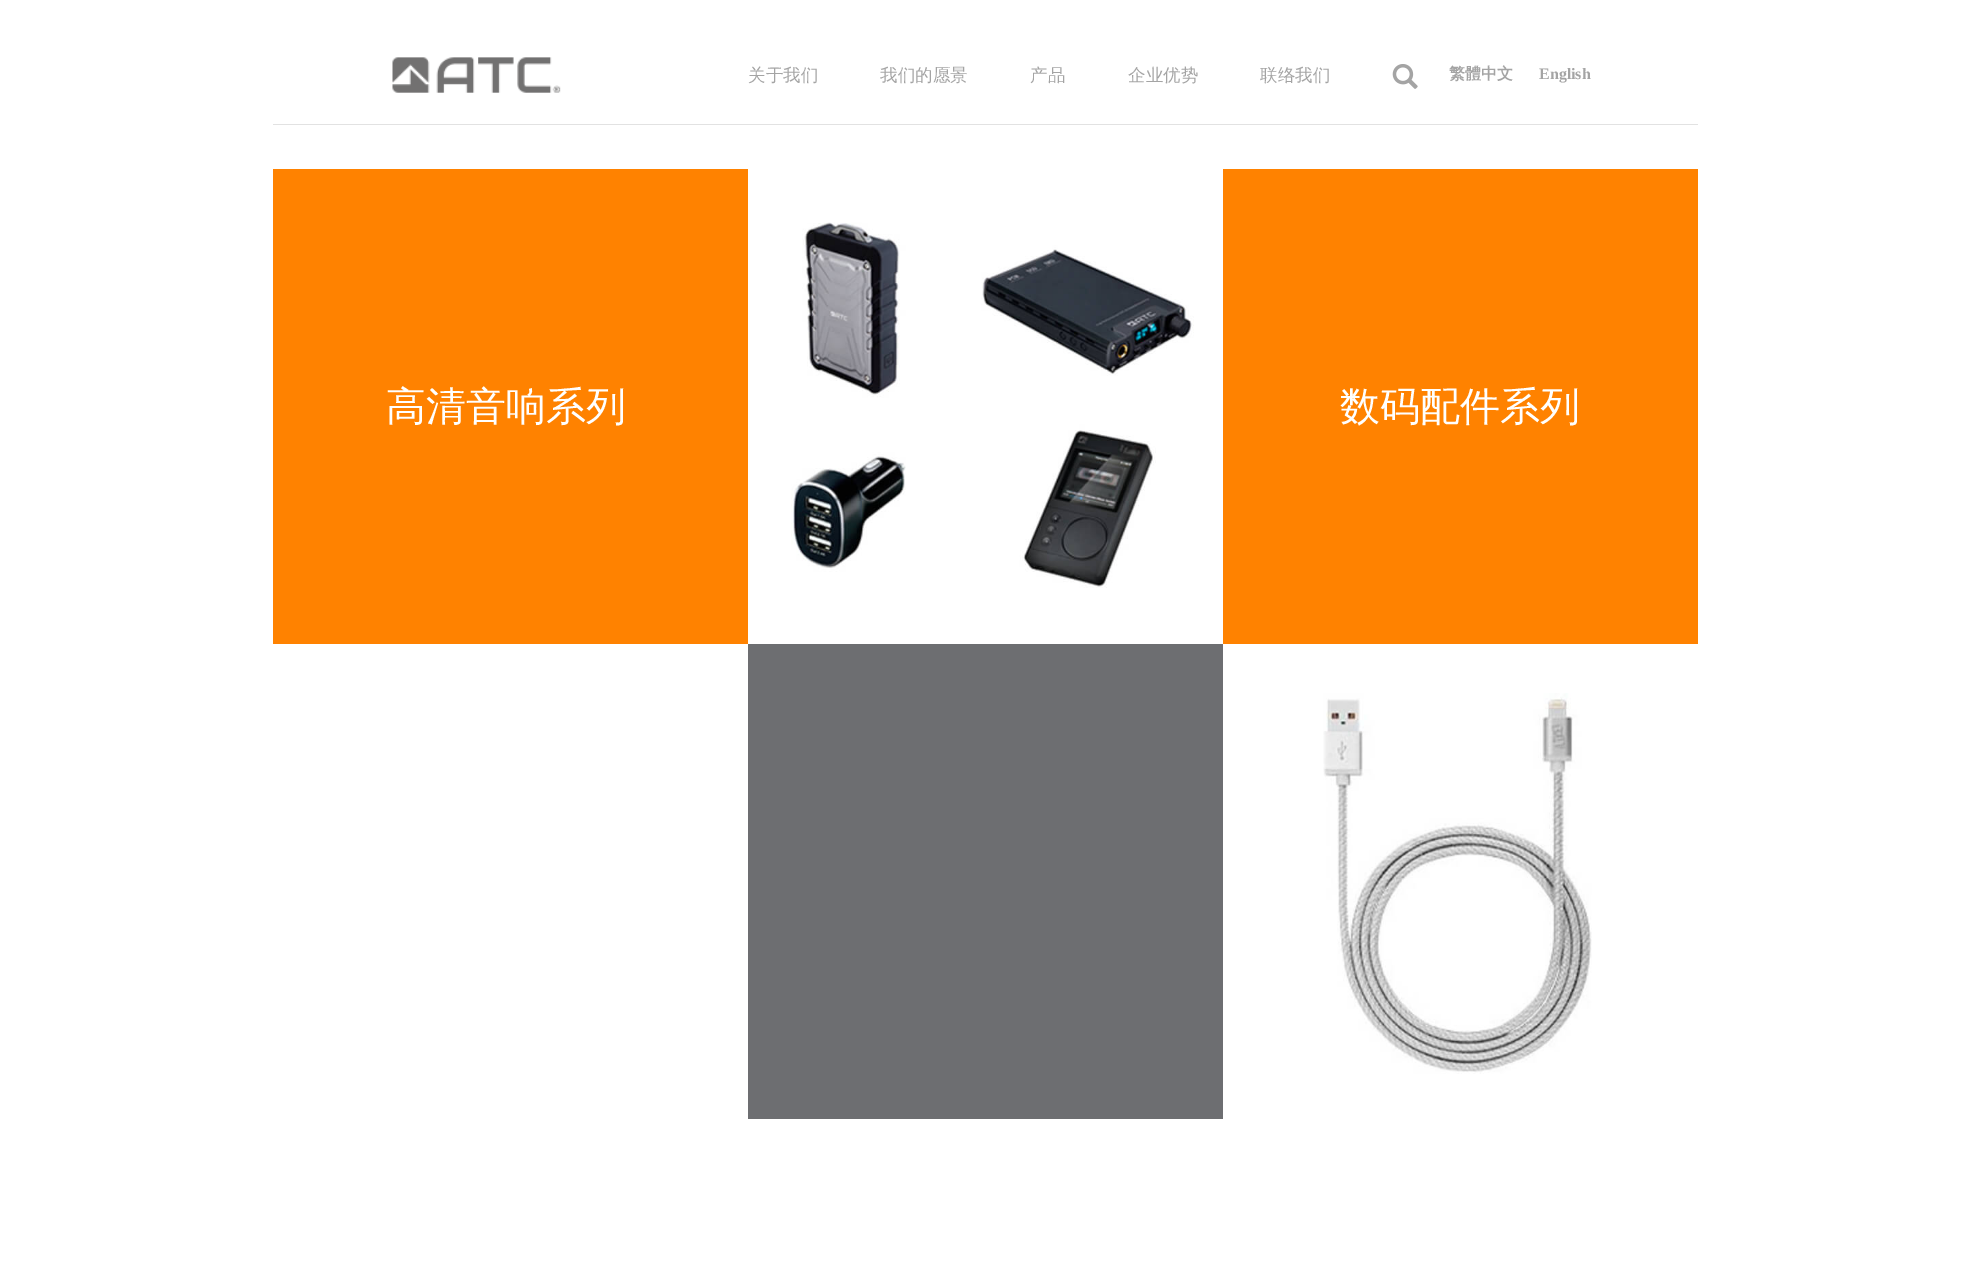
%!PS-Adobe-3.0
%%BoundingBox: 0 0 1969 1266
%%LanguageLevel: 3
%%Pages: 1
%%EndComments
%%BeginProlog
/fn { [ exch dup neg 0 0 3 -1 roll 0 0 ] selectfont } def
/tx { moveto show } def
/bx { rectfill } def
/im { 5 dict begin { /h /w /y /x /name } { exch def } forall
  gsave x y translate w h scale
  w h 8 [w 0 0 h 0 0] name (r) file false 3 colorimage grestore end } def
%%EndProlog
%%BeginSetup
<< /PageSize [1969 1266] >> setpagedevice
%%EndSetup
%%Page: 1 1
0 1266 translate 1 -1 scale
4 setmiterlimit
1 setgray
0 0 1969 1266 bx
0.886 setgray
273 124 1425 1 bx
(image0.raw) 392 57 169 36 im
/WenQuanYiZenHei-Medium 17.5 fn
0.643 setgray
(关于我们) 748 81 tx
(我们的愿景) 880 81 tx
(产品) 1030 81 tx
(企业优势) 1128 81 tx
(联络我们) 1260 81 tx
(image1.raw) 1392 64 26 25 im
/WenQuanYiZenHei-Bold 16 fn
(繁體中文) 1449 79 tx
/LiberationSerif-Bold 16 fn
(English) 1539 79 tx
1 0.51 0 setrgbcolor
273 169 475 475 bx
/WenQuanYiZenHei-Medium 40 fn
1 setgray
(高清音响系列) 386 420 tx
(image2.raw) 791 222 403 366 im
1 0.51 0 setrgbcolor
1223 169 475 475 bx
1 setgray
(数码配件系列) 1340 420 tx
0.427 0.431 0.443 setrgbcolor
748 644 475 475 bx
(image3.raw) 1323 693 269 381 im
showpage
%%EOF
